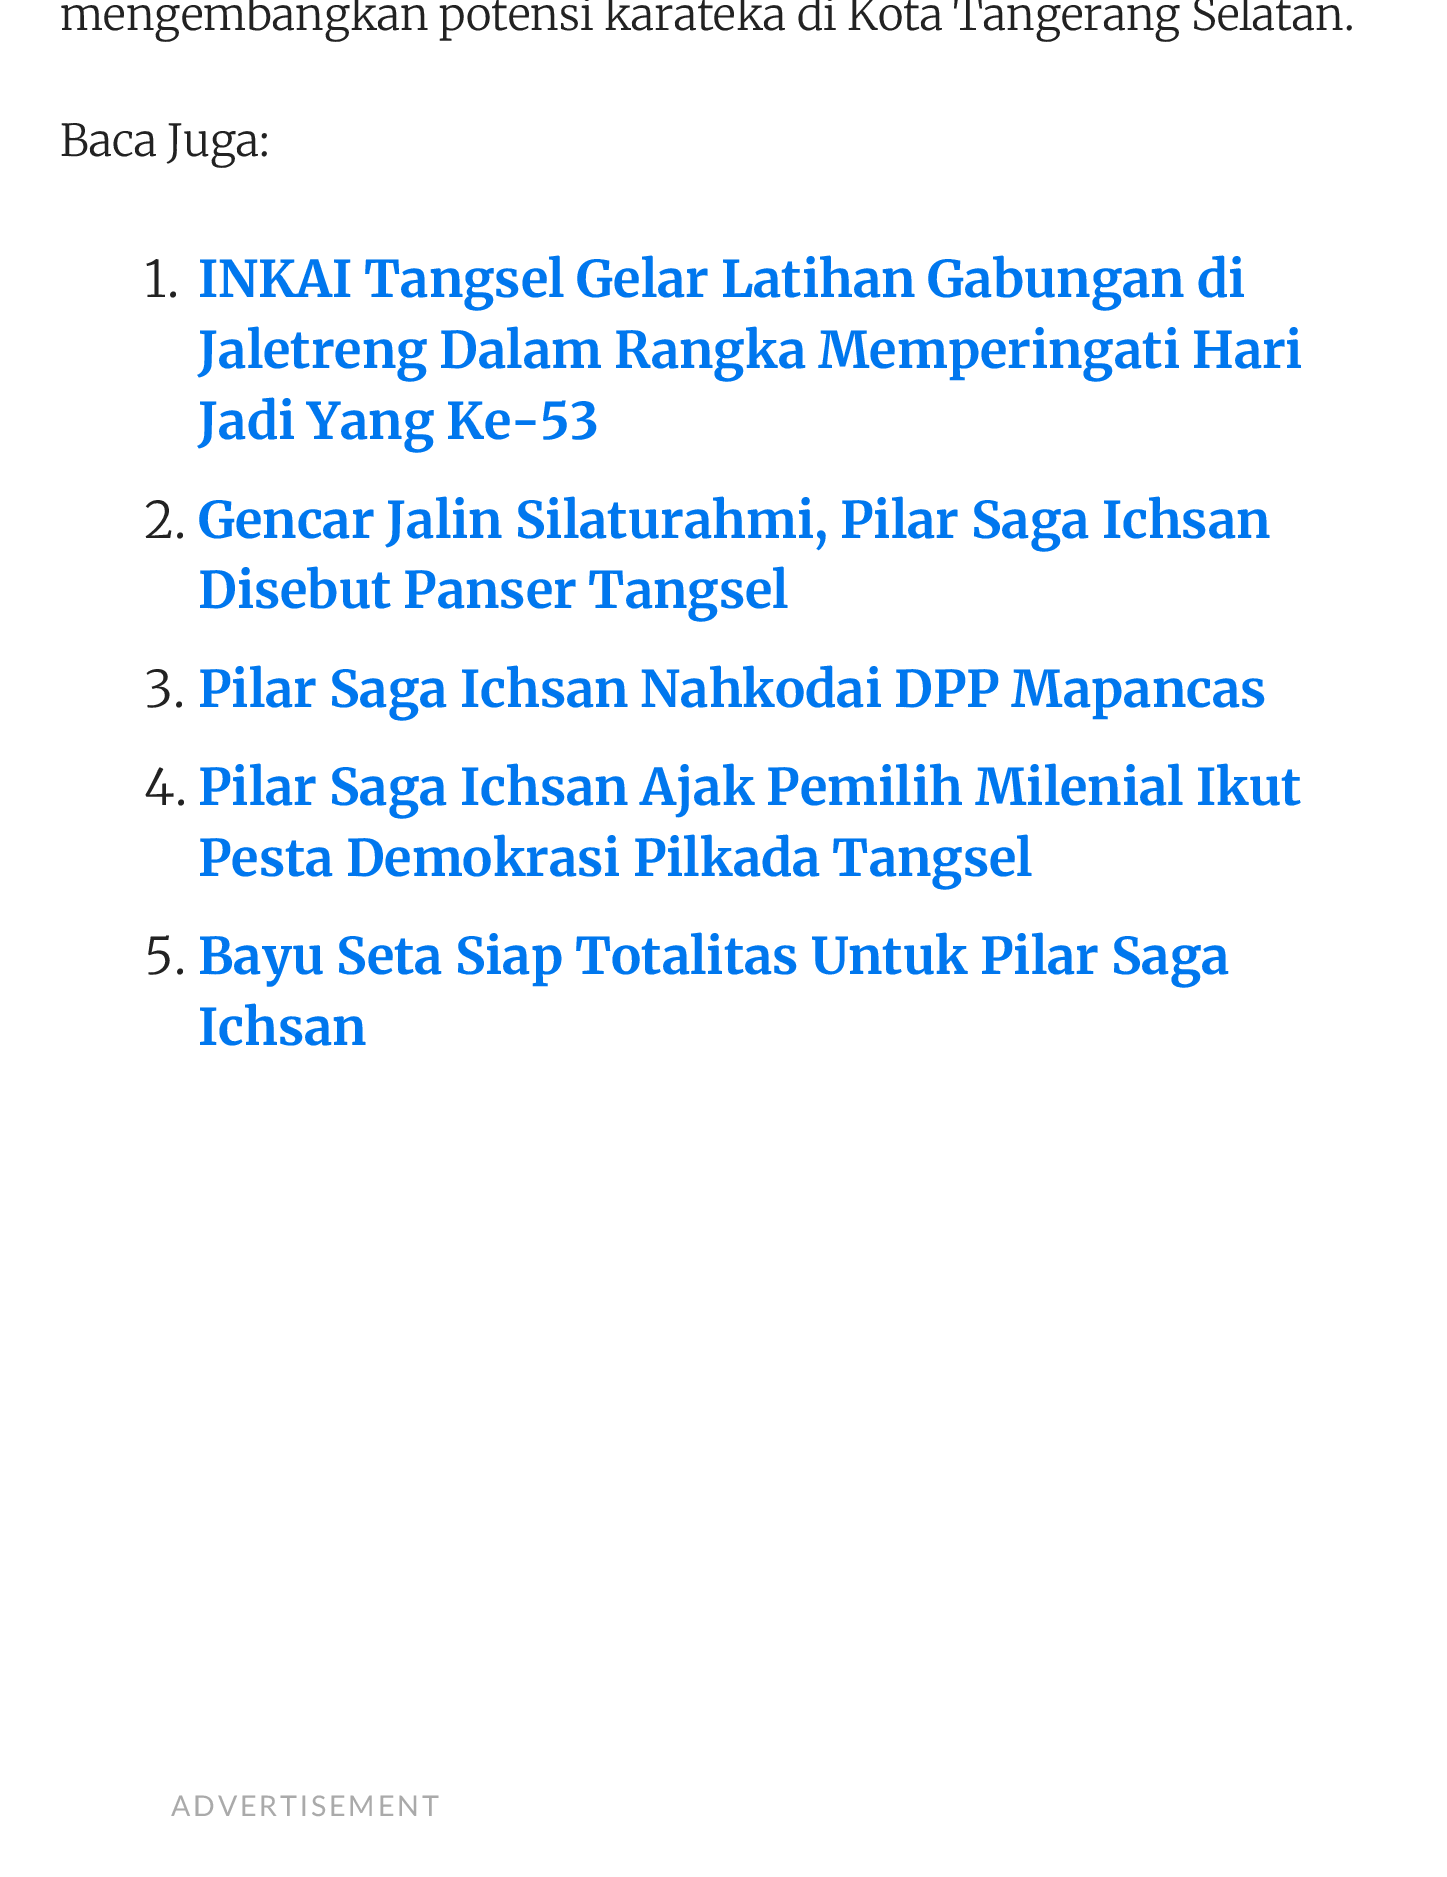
%!PS-Adobe-3.0
%%BoundingBox: 0 0 1447 1877
%%LanguageLevel: 3
%%Pages: 1
%%EndComments
%%BeginProlog
/m { moveto } bind def
/fn { [ exch dup neg 0 0 3 -1 roll 0 0 ] selectfont } def
/tx { moveto show } def
/bx { rectfill } def
%%EndProlog
%%BeginSetup
<< /PageSize [1447 1877] >> setpagedevice
%%EndSetup
%%Page: 1 1
0 1877 translate 1 -1 scale
4 setmiterlimit
1 setgray
0 0 1447 1877 bx
/Merriweather-Light 44 fn
0.133 setgray
(mengembangkan potensi karateka di Kota Tangerang Selatan.) 60 30 tx
(Baca Juga:) 60 156 tx
/Merriweather-Light 50.6 fn
(1.) 144 297 tx
/Merriweather-Bold 50.6 fn
0 0.467 0.933 setrgbcolor
(INKAI Tangsel Gelar Latihan Gabungan di) 198 297 tx
(Jaletreng Dalam Rangka Memperingati Hari) 198 368 tx
(Jadi Yang Ke-53) 198 439 tx
/Merriweather-Light 50.6 fn
0.133 setgray
(2.) 144 538 tx
/Merriweather-Bold 50.6 fn
0 0.467 0.933 setrgbcolor
(Gencar Jalin Silaturahmi, Pilar Saga Ichsan) 198 538 tx
(Disebut Panser Tangsel) 198 608 tx
/Merriweather-Light 50.6 fn
0.133 setgray
(3.) 144 707 tx
/Merriweather-Bold 50.6 fn
0 0.467 0.933 setrgbcolor
(Pilar Saga Ichsan Nahkodai DPP Mapancas) 198 707 tx
/Merriweather-Light 50.6 fn
0.133 setgray
(4.) 144 805 tx
/Merriweather-Bold 50.6 fn
0 0.467 0.933 setrgbcolor
(Pilar Saga Ichsan Ajak Pemilih Milenial Ikut) 198 805 tx
(Pesta Demokrasi Pilkada Tangsel) 198 876 tx
/Merriweather-Light 50.6 fn
0.133 setgray
(5.) 144 974 tx
/Merriweather-Bold 50.6 fn
0 0.467 0.933 setrgbcolor
(Bayu Seta Siap Totalitas Untuk Pilar Saga) 198 974 tx
(Ichsan) 198 1045 tx
/Lato-Regular 28.5 fn
0.667 setgray
171 1816 m 2.9 0 (ADVERTISEMENT) ashow
showpage
%%EOF
